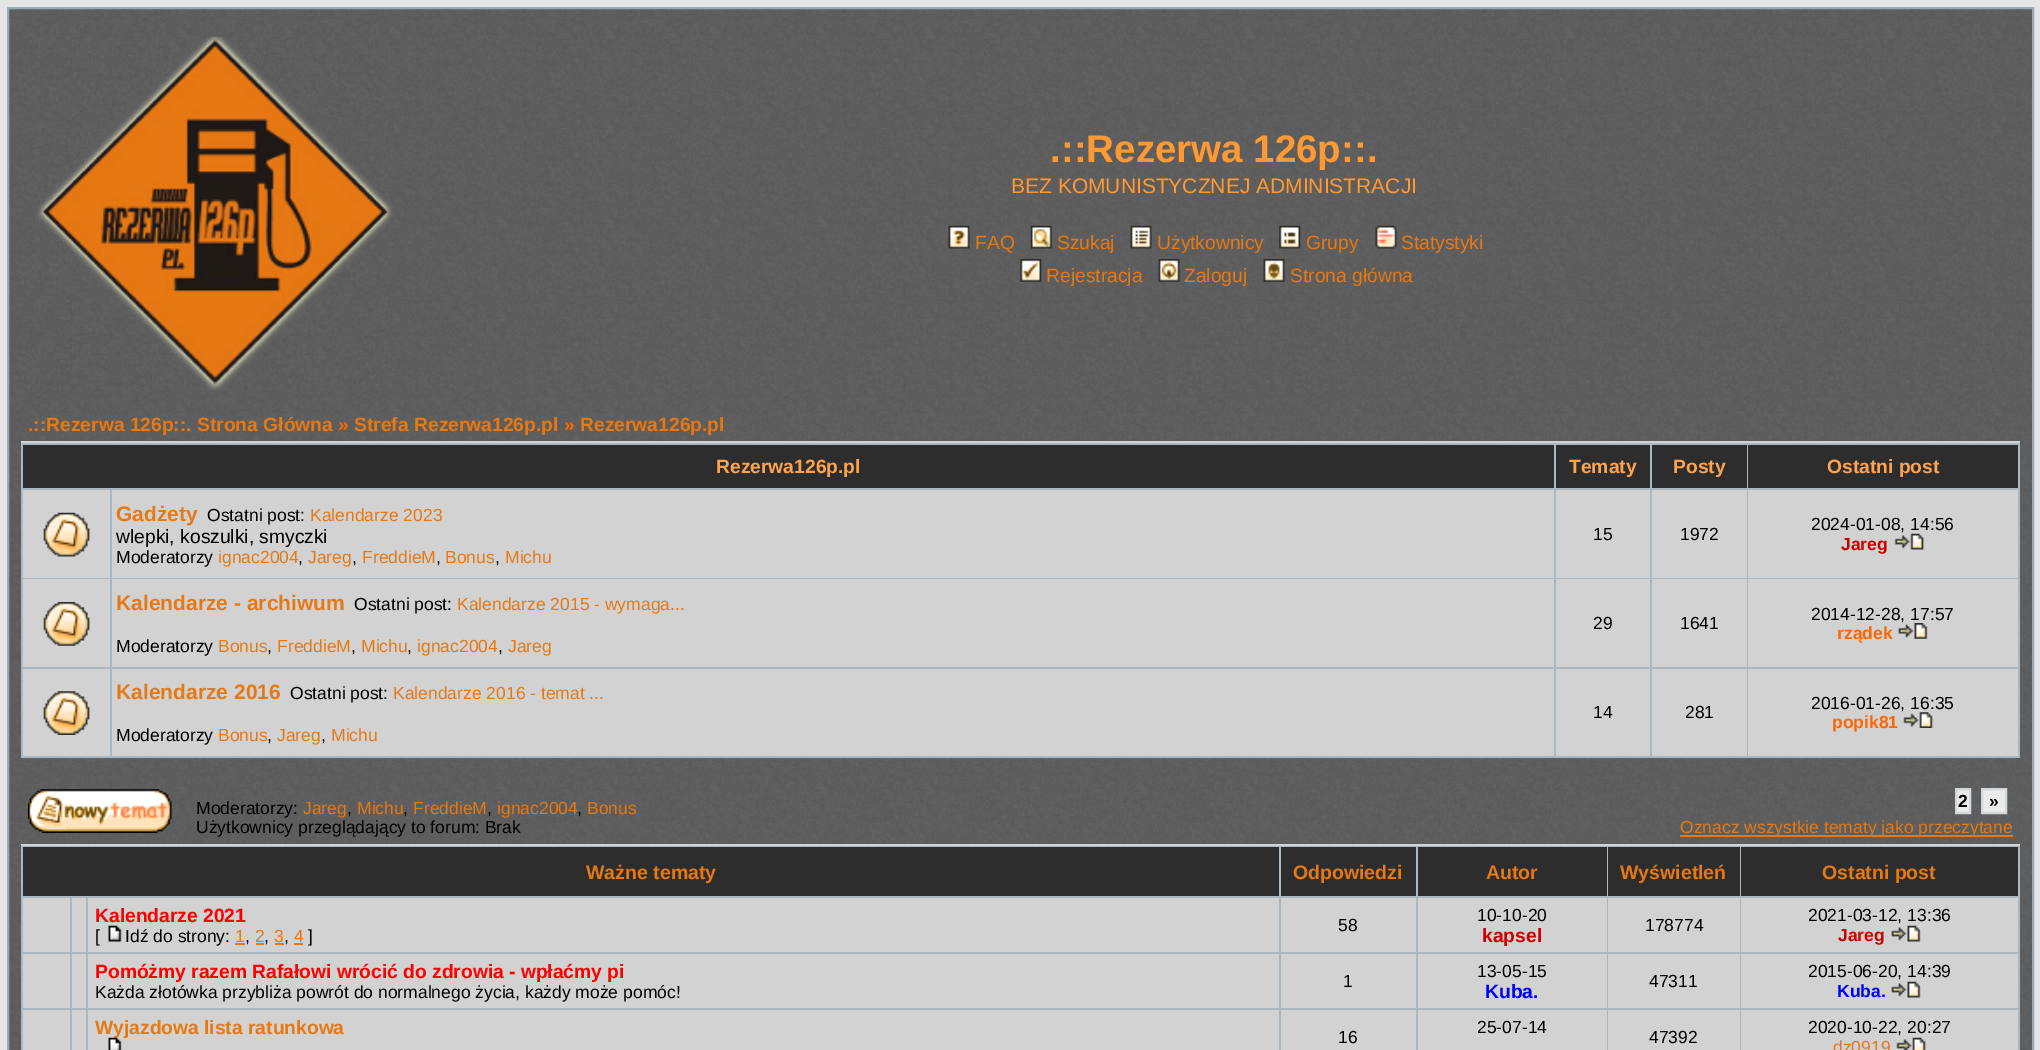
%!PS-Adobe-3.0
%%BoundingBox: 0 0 2040 1050
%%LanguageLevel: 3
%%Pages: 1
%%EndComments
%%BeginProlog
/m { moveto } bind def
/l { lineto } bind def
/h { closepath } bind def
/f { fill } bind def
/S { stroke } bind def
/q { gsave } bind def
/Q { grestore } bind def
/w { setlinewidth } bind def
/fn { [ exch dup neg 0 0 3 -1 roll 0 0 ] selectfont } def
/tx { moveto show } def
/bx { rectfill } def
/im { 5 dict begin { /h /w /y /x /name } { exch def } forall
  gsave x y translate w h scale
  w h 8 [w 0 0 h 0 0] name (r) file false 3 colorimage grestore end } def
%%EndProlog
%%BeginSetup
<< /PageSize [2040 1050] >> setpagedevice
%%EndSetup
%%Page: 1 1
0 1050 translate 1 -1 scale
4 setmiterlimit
0.898 setgray
0 0 2040 1050 bx
(image0.raw) 9 9 2023 1041 im
0.596 0.667 0.694 setrgbcolor
2 w
8 8 2025 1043 rectstroke
(image1.raw) 35 36 359 355 im
/LiberationSans-Bold 38.5 fn
1 0.6 0.2 setrgbcolor
(.::Rezerwa 126p::.) 1050 162 tx
/LiberationSans-Regular 21 fn
(BEZ KOMUNISTYCZNEJ ADMINISTRACJI) 1011 193 tx
(image2.raw) 948 225 22 24 im
/LiberationSans-Regular 19.25 fn
0.902 0.475 0.078 setrgbcolor
(FAQ) 975 249 tx
(image3.raw) 1030 225 22 24 im
(Szukaj) 1057 249 tx
(image4.raw) 1130 225 22 24 im
(Użytkownicy) 1157 249 tx
(image5.raw) 1279 225 22 24 im
(Grupy) 1306 249 tx
(image6.raw) 1375 225 22 24 im
(Statystyki) 1401 249 tx
(image7.raw) 1020 259 22 23 im
(Rejestracja) 1046 282 tx
(image8.raw) 1158 259 22 23 im
(Zaloguj) 1184 282 tx
(image9.raw) 1263 259 22 23 im
(Strona główna) 1290 282 tx
/LiberationSans-Bold 19.25 fn
(.::Rezerwa 126p::. Strona Główna) 28 431 tx
1 0.4 0 setrgbcolor
(») 338 431 tx
0.902 0.475 0.078 setrgbcolor
(Strefa Rezerwa126p.pl) 354 431 tx
1 0.4 0 setrgbcolor
(») 564 431 tx
0.902 0.475 0.078 setrgbcolor
(Rezerwa126p.pl) 580 431 tx
0.663 0.722 0.761 setrgbcolor
21 443 1999 315 bx
0.824 setgray
21 441 1999 2 bx
0.176 setgray
23 445 1531 43 bx
1 0.639 0.31 setrgbcolor
(Rezerwa126p.pl) 716 473 tx
0.176 setgray
1556 445 94 43 bx
1 0.639 0.31 setrgbcolor
(Tematy) 1569 473 tx
0.176 setgray
1652 445 95 43 bx
1 0.639 0.31 setrgbcolor
(Posty) 1673 473 tx
0.176 setgray
1748 445 270 43 bx
1 0.639 0.31 setrgbcolor
(Ostatni post) 1827 473 tx
0.824 setgray
23 490 87 88 bx
(image10.raw) 43 512 47 45 im
112 490 1442 88 bx
/LiberationSans-Bold 21 fn
0.902 0.475 0.078 setrgbcolor
(Gadżety) 116 521 tx
/LiberationSans-Regular 17.5 fn
0 setgray
(Ostatni post:) 207 521 tx
0.902 0.475 0.078 setrgbcolor
(Kalendarze 2023) 310 521 tx
/LiberationSans-Regular 19.25 fn
0 setgray
(wlepki, koszulki, smyczki) 116 543 tx
/LiberationSans-Regular 17.5 fn
(Moderatorzy) 116 563 tx
0.902 0.475 0.078 setrgbcolor
(ignac2004) 218 563 tx
0 setgray
(,) 298 563 tx
0.902 0.475 0.078 setrgbcolor
(Jareg) 308 563 tx
0 setgray
(,) 352 563 tx
0.902 0.475 0.078 setrgbcolor
(FreddieM) 362 563 tx
0 setgray
(,) 436 563 tx
0.902 0.475 0.078 setrgbcolor
(Bonus) 445 563 tx
0 setgray
(,) 495 563 tx
0.902 0.475 0.078 setrgbcolor
(Michu) 505 563 tx
0.824 setgray
1556 490 94 88 bx
0 setgray
(15) 1593 540 tx
0.824 setgray
1652 490 95 88 bx
0 setgray
(1972) 1680 540 tx
0.824 setgray
1748 490 270 88 bx
0 setgray
(2024-01-08, 14:56) 1811 530 tx
/LiberationSans-Bold 17.5 fn
0.8 0 0 setrgbcolor
(Jareg) 1841 550 tx
(image11.raw) 1894 533 30 17 im
0.824 setgray
23 579 87 88 bx
(image12.raw) 43 602 47 44 im
112 579 1442 88 bx
/LiberationSans-Bold 21 fn
0.902 0.475 0.078 setrgbcolor
(Kalendarze - archiwum) 116 610 tx
/LiberationSans-Regular 17.5 fn
0 setgray
(Ostatni post:) 354 610 tx
0.902 0.475 0.078 setrgbcolor
(Kalendarze 2015 - wymaga...) 457 610 tx
0 setgray
(Moderatorzy) 116 652 tx
0.902 0.475 0.078 setrgbcolor
(Bonus) 218 652 tx
0 setgray
(,) 267 652 tx
0.902 0.475 0.078 setrgbcolor
(FreddieM) 277 652 tx
0 setgray
(,) 351 652 tx
0.902 0.475 0.078 setrgbcolor
(Michu) 361 652 tx
0 setgray
(,) 407 652 tx
0.902 0.475 0.078 setrgbcolor
(ignac2004) 417 652 tx
0 setgray
(,) 498 652 tx
0.902 0.475 0.078 setrgbcolor
(Jareg) 508 652 tx
0.824 setgray
1556 579 94 88 bx
0 setgray
(29) 1593 629 tx
0.824 setgray
1652 579 95 88 bx
0 setgray
(1641) 1680 629 tx
0.824 setgray
1748 579 270 88 bx
0 setgray
(2014-12-28, 17:57) 1811 620 tx
/LiberationSans-Bold 17.5 fn
1 0.4 0 setrgbcolor
(rządek) 1837 639 tx
(image13.raw) 1898 623 30 16 im
0.824 setgray
23 669 87 87 bx
(image14.raw) 43 691 47 44 im
112 669 1442 87 bx
/LiberationSans-Bold 21 fn
0.902 0.475 0.078 setrgbcolor
(Kalendarze 2016) 116 699 tx
/LiberationSans-Regular 17.5 fn
0 setgray
(Ostatni post:) 290 699 tx
0.902 0.475 0.078 setrgbcolor
(Kalendarze 2016 - temat ...) 393 699 tx
0 setgray
(Moderatorzy) 116 741 tx
0.902 0.475 0.078 setrgbcolor
(Bonus) 218 741 tx
0 setgray
(,) 267 741 tx
0.902 0.475 0.078 setrgbcolor
(Jareg) 277 741 tx
0 setgray
(,) 321 741 tx
0.902 0.475 0.078 setrgbcolor
(Michu) 331 741 tx
0.824 setgray
1556 669 94 87 bx
0 setgray
(14) 1593 718 tx
0.824 setgray
1652 669 95 87 bx
0 setgray
(281) 1685 718 tx
0.824 setgray
1748 669 270 87 bx
0 setgray
(2016-01-26, 16:35) 1811 709 tx
/LiberationSans-Bold 17.5 fn
1 0.4 0 setrgbcolor
(popik81) 1832 728 tx
(image15.raw) 1903 712 30 16 im
(image16.raw) 28 789 144 44 im
/LiberationSans-Regular 17.5 fn
0 setgray
(Moderatorzy:) 196 814 tx
0.902 0.475 0.078 setrgbcolor
(Jareg) 303 814 tx
0 setgray
(,) 347 814 tx
0.902 0.475 0.078 setrgbcolor
(Michu) 357 814 tx
0 setgray
(,) 403 814 tx
0.902 0.475 0.078 setrgbcolor
(FreddieM) 413 814 tx
0 setgray
(,) 487 814 tx
0.902 0.475 0.078 setrgbcolor
(ignac2004) 497 814 tx
0 setgray
(,) 577 814 tx
0.902 0.475 0.078 setrgbcolor
(Bonus) 587 814 tx
0 setgray
(Użytkownicy przeglądający to forum: Brak) 196 833 tx
0.918 0.922 0.922 setrgbcolor
1956 789 m 1970 789 l 1970 813 l 1956 813 l h q f Q
0.831 0.843 0.855 setrgbcolor
S
/LiberationSans-Bold 17.5 fn
0 setgray
(2) 1958 807 tx
0.918 0.922 0.922 setrgbcolor
1982 789 m 2006 789 l 2006 813 l 1982 813 l h q f Q
0.831 0.843 0.855 setrgbcolor
S
0 setgray
(») 1989 807 tx
0.902 0.475 0.078 setrgbcolor
1680 835 333 2 bx
/LiberationSans-Regular 17.5 fn
(Oznacz wszystkie tematy jako przeczytane) 1680 833 tx
0.663 0.722 0.761 setrgbcolor
21 846 1999 204 bx
0.824 setgray
21 844 1999 2 bx
0.176 setgray
23 847 1256 49 bx
/LiberationSans-Bold 19.5 fn
0.902 0.475 0.078 setrgbcolor
(Ważne tematy) 586 879 tx
0.176 setgray
1281 847 135 49 bx
0.902 0.475 0.078 setrgbcolor
(Odpowiedzi) 1293 879 tx
0.176 setgray
1418 847 189 49 bx
0.902 0.475 0.078 setrgbcolor
(Autor) 1486 879 tx
0.176 setgray
1608 847 132 49 bx
0.902 0.475 0.078 setrgbcolor
(Wyświetleń) 1620 879 tx
0.176 setgray
1741 847 277 49 bx
0.902 0.475 0.078 setrgbcolor
(Ostatni post) 1822 879 tx
0.824 setgray
23 898 47 54 bx
72 898 14 54 bx
88 898 1191 54 bx
/LiberationSans-Bold 19.25 fn
1 0 0 setrgbcolor
(Kalendarze 2021) 95 922 tx
/LiberationSans-Regular 17.5 fn
0 setgray
([) 95 942 tx
(image17.raw) 108 925 14 17 im
(Idź do strony:) 125 942 tx
0.902 0.475 0.078 setrgbcolor
(1) 235 942 tx
0 setgray
(,) 245 942 tx
0.902 0.475 0.078 setrgbcolor
235 943 10 2 bx
(2) 255 942 tx
0 setgray
(,) 264 942 tx
0.902 0.475 0.078 setrgbcolor
256 943 8 2 bx
(3) 274 942 tx
0 setgray
(,) 284 942 tx
0.902 0.475 0.078 setrgbcolor
275 943 9 2 bx
294 943 9 2 bx
(4) 294 942 tx
0 setgray
(]) 308 942 tx
0.824 setgray
1281 898 135 54 bx
0 setgray
(58) 1338 931 tx
0.824 setgray
1418 898 189 54 bx
0 setgray
(10-10-20) 1477 921 tx
/LiberationSans-Bold 19.25 fn
0.8 0 0 setrgbcolor
(kapsel) 1482 942 tx
0.824 setgray
1608 898 132 54 bx
/LiberationSans-Regular 17.5 fn
0 setgray
(178774) 1645 931 tx
0.824 setgray
1741 898 277 54 bx
0 setgray
(2021-03-12, 13:36) 1808 921 tx
/LiberationSans-Bold 17.5 fn
0.8 0 0 setrgbcolor
(Jareg) 1838 941 tx
(image18.raw) 1891 925 30 17 im
0.824 setgray
23 954 47 54 bx
72 954 14 54 bx
88 954 1191 54 bx
/LiberationSans-Bold 19.25 fn
1 0 0 setrgbcolor
(Pomóżmy razem Rafałowi wrócić do zdrowia - wpłaćmy pi) 95 978 tx
/LiberationSans-Regular 17.5 fn
0 setgray
(Każda złotówka przybliża powrót do normalnego życia, każdy może pomóc!) 95 998 tx
0.824 setgray
1281 954 135 54 bx
0 setgray
(1) 1343 987 tx
0.824 setgray
1418 954 189 54 bx
0 setgray
(13-05-15) 1477 977 tx
/LiberationSans-Bold 19.25 fn
0 0 1 setrgbcolor
(Kuba.) 1485 998 tx
0.824 setgray
1608 954 132 54 bx
/LiberationSans-Regular 17.5 fn
0 setgray
(47311) 1649 987 tx
0.824 setgray
1741 954 277 54 bx
0 setgray
(2015-06-20, 14:39) 1808 977 tx
/LiberationSans-Bold 17.5 fn
0 0 1 setrgbcolor
(Kuba.) 1837 997 tx
(image18.raw) 1891 981 30 17 im
0.824 setgray
23 1010 47 40 bx
72 1010 14 40 bx
88 1010 1191 40 bx
/LiberationSans-Bold 19.25 fn
0.902 0.475 0.078 setrgbcolor
(Wyjazdowa lista ratunkowa) 95 1034 tx
(image19.raw) 108 1037 14 13 im
0.824 setgray
1281 1010 135 40 bx
/LiberationSans-Regular 17.5 fn
0 setgray
(16) 1338 1043 tx
0.824 setgray
1418 1010 189 40 bx
0 setgray
(25-07-14) 1477 1033 tx
0.824 setgray
1608 1010 132 40 bx
0 setgray
(47392) 1649 1043 tx
0.824 setgray
1741 1010 277 40 bx
0 setgray
(2020-10-22, 20:27) 1808 1033 tx
0.902 0.475 0.078 setrgbcolor
(dz0919) 1833 1053 tx
(image20.raw) 1896 1037 30 13 im
showpage
%%EOF
